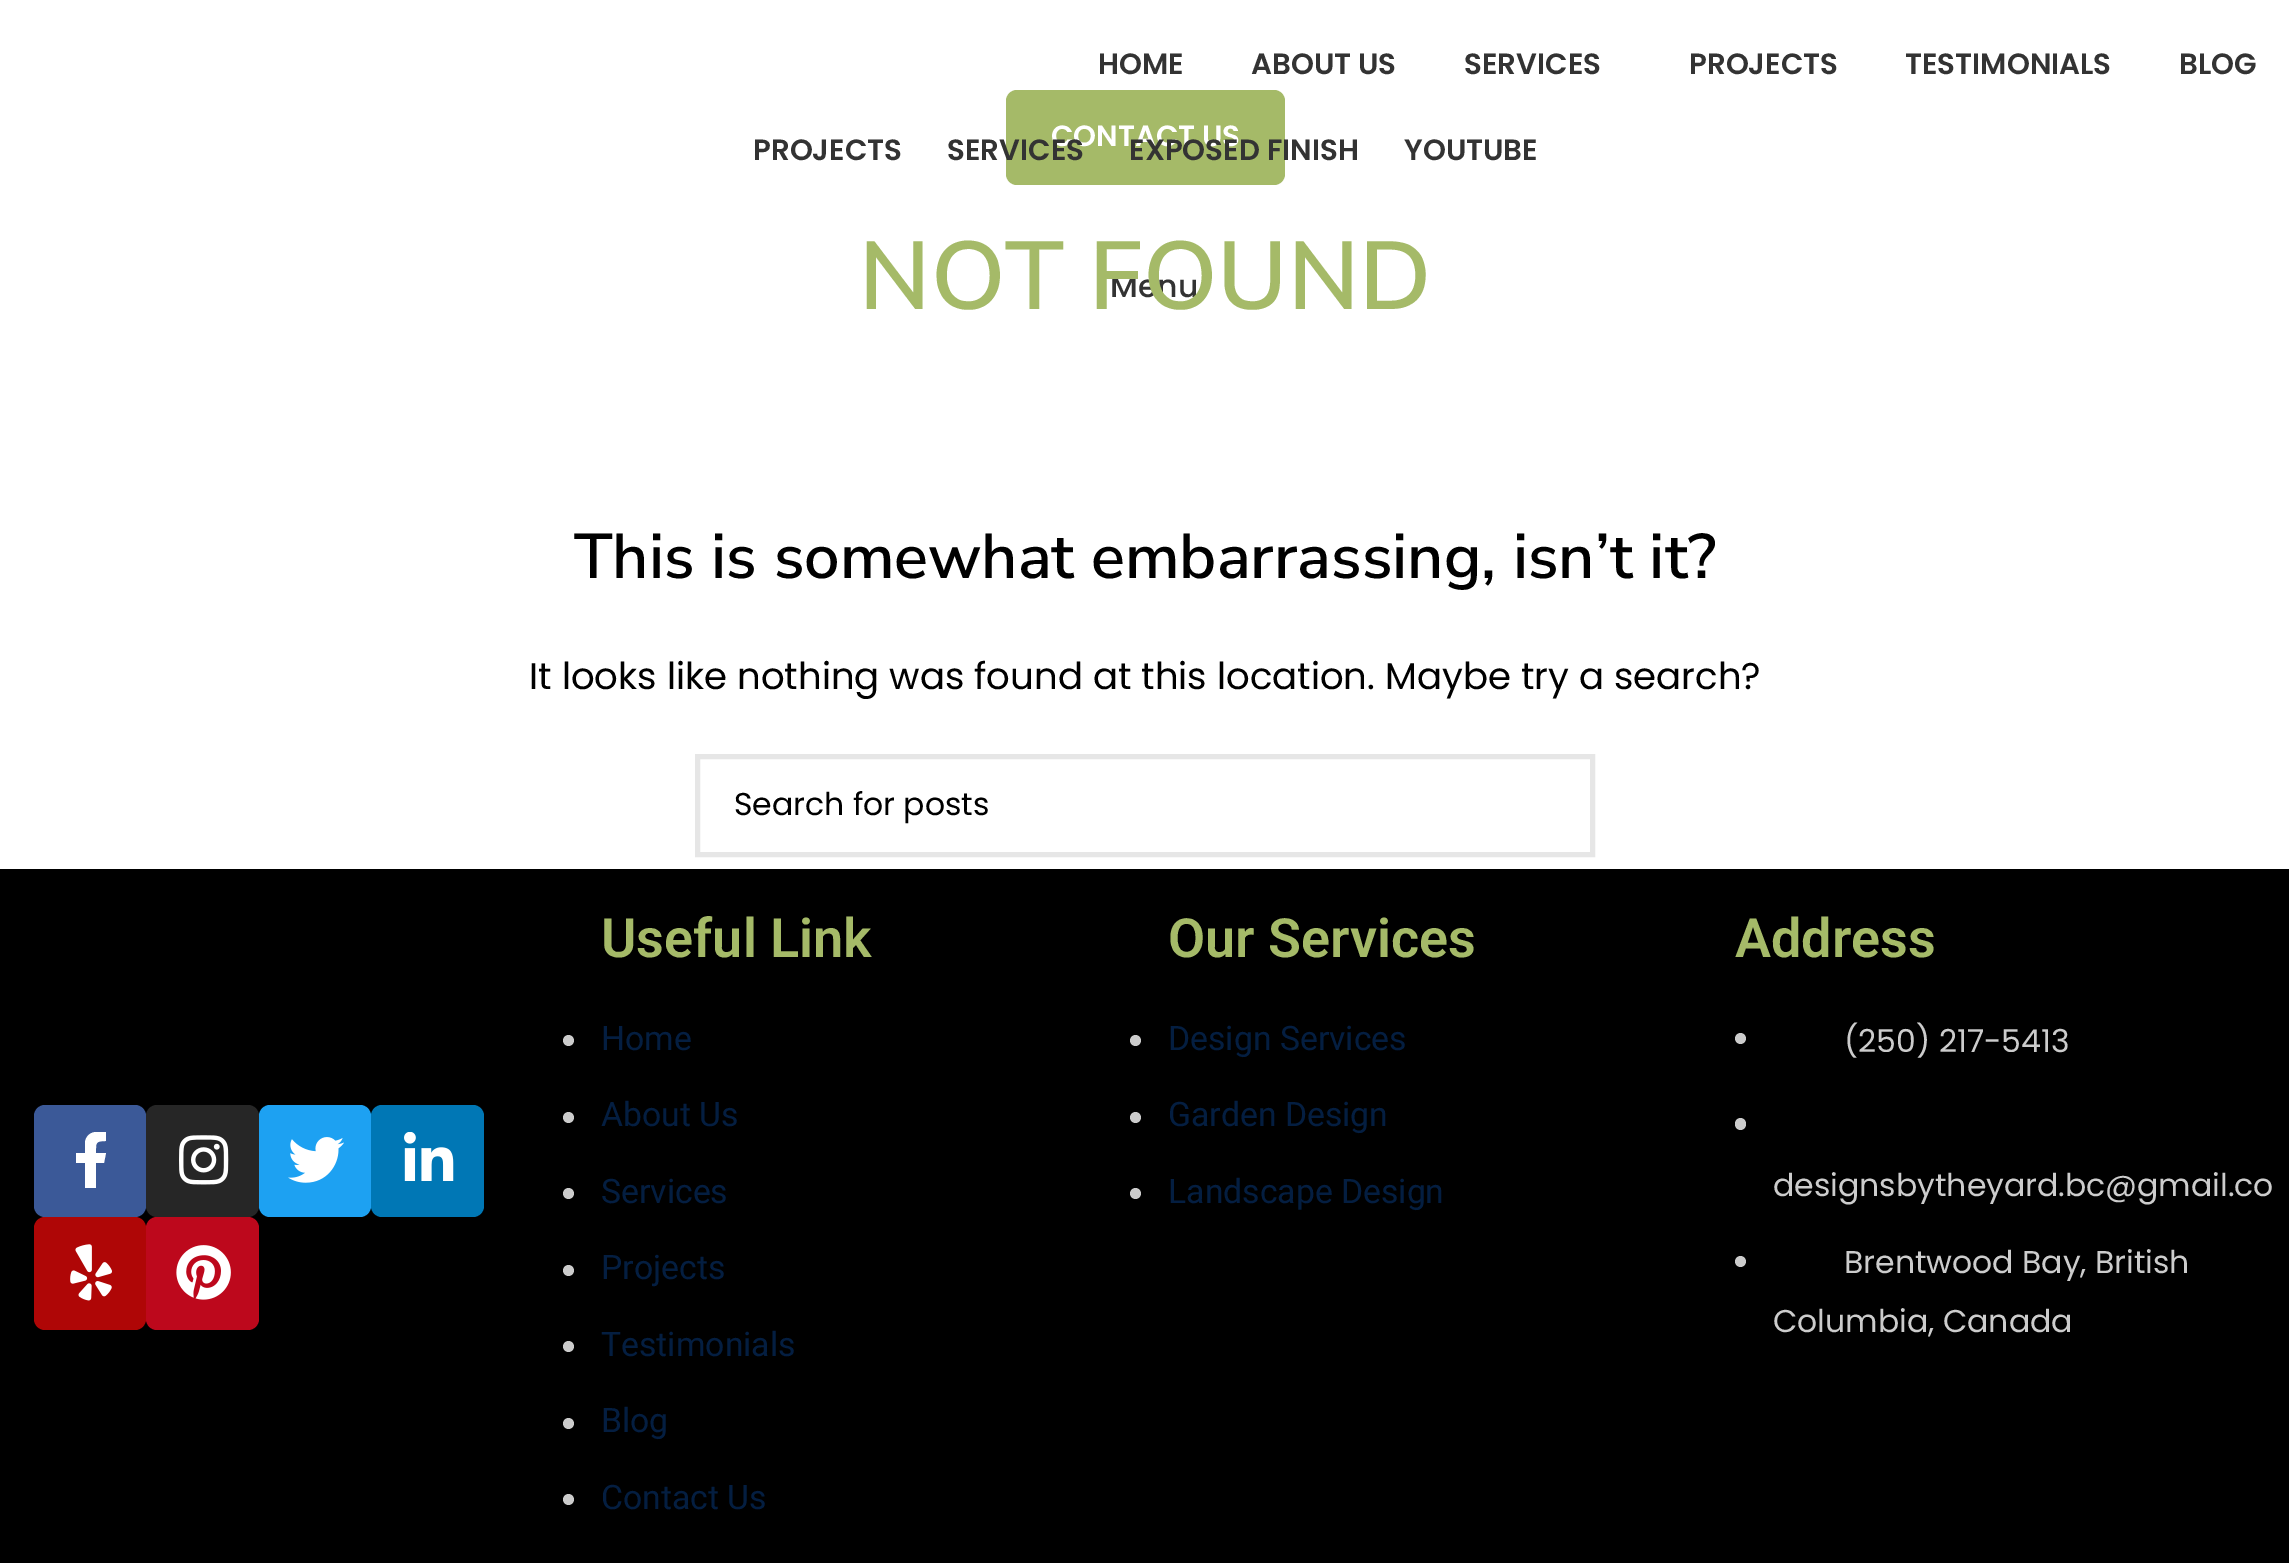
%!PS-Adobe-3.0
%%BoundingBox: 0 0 2289 1563
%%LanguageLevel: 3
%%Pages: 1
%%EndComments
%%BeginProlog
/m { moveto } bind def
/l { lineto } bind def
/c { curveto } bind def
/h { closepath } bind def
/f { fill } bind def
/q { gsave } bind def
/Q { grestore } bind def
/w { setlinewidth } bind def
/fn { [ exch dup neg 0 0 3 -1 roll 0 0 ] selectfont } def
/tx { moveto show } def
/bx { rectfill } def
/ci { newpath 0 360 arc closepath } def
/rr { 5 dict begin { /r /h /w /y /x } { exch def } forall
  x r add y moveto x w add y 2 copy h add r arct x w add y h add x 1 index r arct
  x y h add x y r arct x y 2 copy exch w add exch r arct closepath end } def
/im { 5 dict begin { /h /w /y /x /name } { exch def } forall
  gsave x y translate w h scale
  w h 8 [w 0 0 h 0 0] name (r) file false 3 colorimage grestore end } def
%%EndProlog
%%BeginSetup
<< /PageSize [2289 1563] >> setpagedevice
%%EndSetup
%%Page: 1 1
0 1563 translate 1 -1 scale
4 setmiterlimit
1 setgray
0 0 2289 1563 bx
/Poppins-SemiBold 29.25 fn
0.2 setgray
(HOME) 1098 74 tx
(ABOUT US) 1251 74 tx
(SERVICES) 1464 74 tx
(PROJECTS) 1689 74 tx
(TESTIMONIALS) 1905 74 tx
(BLOG) 2179 74 tx
0.647 0.729 0.408 setrgbcolor
1006 90 279 95 11 rr f
1 setgray
(CONTACT US) 1051 146 tx
/Poppins-Medium 31.5 fn
0.2 setgray
(Menu) 1110 297 tx
/Poppins-SemiBold 29.25 fn
(PROJECTS) 753 160 tx
(SERVICES) 947 160 tx
(EXPOSED FINISH) 1129 160 tx
(YOUTUBE) 1404 160 tx
/NunitoSans-SemiBold 96.25 fn
0.647 0.729 0.408 setrgbcolor
(NOT FOUND) 859 309 tx
/NunitoSans-SemiBold 63 fn
0 setgray
(This is somewhat embarrassing, isn’t it?) 574 578 tx
/Poppins-Regular 37.1 fn
(It looks like nothing was found at this location. Maybe try a search?) 529 689 tx
0.902 setgray
5 w
697.5 756.5 895 98 rectstroke
/Poppins-Regular 31.5 fn
0 setgray
(Search for posts) 734 815 tx
0 869 2289 694 bx
0.231 0.349 0.596 setrgbcolor
34 1105 112 112 11 rr f
q
63 1132 56 56 rectclip
1 setgray
104 1163 m 106 1153 l 96 1153 l 96 1143 95 1141 106 1141 c 106 1132 l 97 1131 87 1131 85 1142 c 85 1153 l 76 1153 l 76 1163 l 85 1163 l 85 1188 l 96 1188 l 96 1163 l h f
Q
0.149 setgray
146 1105 113 112 11 rr f
(image0.raw) 179 1135 50 50 im
0.114 0.631 0.949 setrgbcolor
259 1105 112 112 11 rr f
(image1.raw) 288 1137 56 46 im
0 0.467 0.71 setrgbcolor
371 1105 113 112 11 rr f
(image2.raw) 404 1132 50 49 im
0.686 0.024 0.024 setrgbcolor
34 1217 112 113 11 rr f
(image3.raw) 70 1244 42 57 im
0.741 0.031 0.11 setrgbcolor
146 1217 113 113 11 rr f
(image4.raw) 176 1245 55 55 im
/Roboto-SemiBold 54 fn
0.647 0.729 0.408 setrgbcolor
(Useful Link) 601 957 tx
0.8 setgray
568.5 1040.5 5.5 ci f
/Roboto-Regular 33.75 fn
0.016 0.118 0.255 setrgbcolor
(Home) 601 1050 tx
0.8 setgray
568.5 1117.5 5.5 ci f
0.016 0.118 0.255 setrgbcolor
(About Us) 601 1126 tx
0.8 setgray
568.5 1193.5 5.5 ci f
0.016 0.118 0.255 setrgbcolor
(Services) 601 1203 tx
0.8 setgray
568.5 1270.5 5.5 ci f
0.016 0.118 0.255 setrgbcolor
(Projects) 601 1279 tx
0.8 setgray
568.5 1346.5 5.5 ci f
0.016 0.118 0.255 setrgbcolor
(Testimonials) 601 1356 tx
0.8 setgray
568.5 1423.5 5.5 ci f
0.016 0.118 0.255 setrgbcolor
(Blog) 601 1432 tx
0.8 setgray
568.5 1499.5 5.5 ci f
0.016 0.118 0.255 setrgbcolor
(Contact Us) 601 1509 tx
/Roboto-SemiBold 54 fn
0.647 0.729 0.408 setrgbcolor
(Our Services) 1168 957 tx
0.8 setgray
1135.5 1040.5 5.5 ci f
/Roboto-Regular 33.75 fn
0.016 0.118 0.255 setrgbcolor
(Design Services) 1168 1050 tx
0.8 setgray
1135.5 1117.5 5.5 ci f
0.016 0.118 0.255 setrgbcolor
(Garden Design) 1168 1126 tx
0.8 setgray
1135.5 1193.5 5.5 ci f
0.016 0.118 0.255 setrgbcolor
(Landscape Design) 1168 1203 tx
/Roboto-SemiBold 54 fn
0.647 0.729 0.408 setrgbcolor
(Address) 1735 957 tx
0.8 setgray
1740.5 1038.5 5.5 ci f
/Poppins-Regular 31.5 fn
(\(250\) 217-5413) 1844 1052 tx
1735 1118 11 12 5.5 rr f
(designsbytheyard.bc@gmail.co) 1773 1196 tx
1740.5 1261.5 5.5 ci f
(Brentwood Bay, British) 1844 1273 tx
(Columbia, Canada) 1773 1332 tx
showpage
%%EOF
